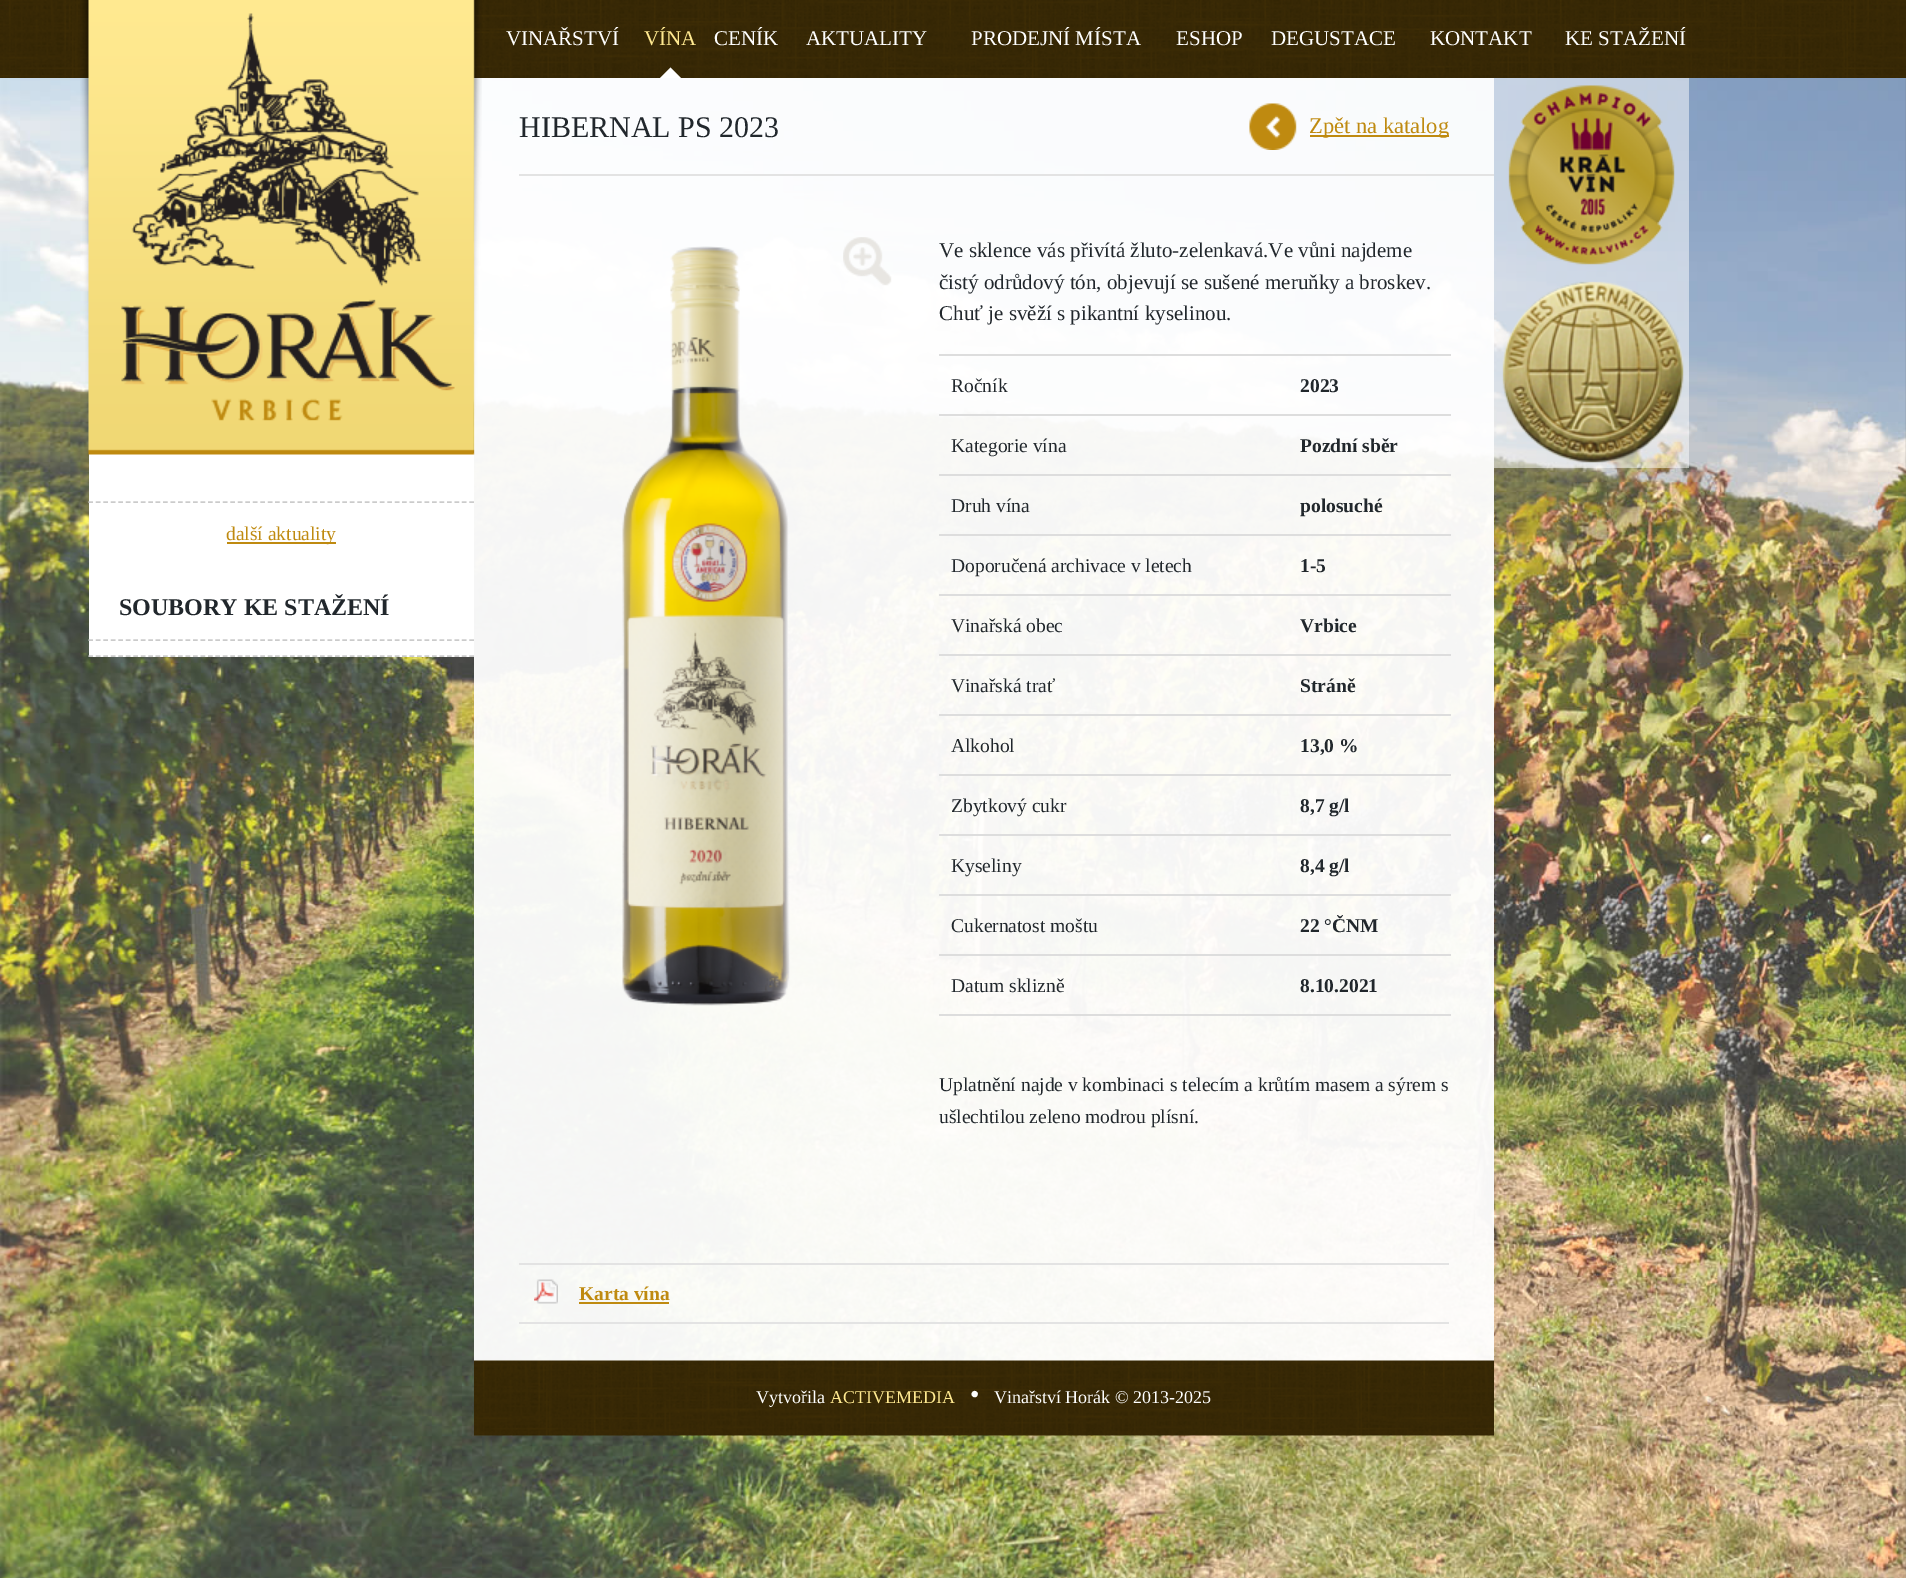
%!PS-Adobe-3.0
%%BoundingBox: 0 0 1906 1578
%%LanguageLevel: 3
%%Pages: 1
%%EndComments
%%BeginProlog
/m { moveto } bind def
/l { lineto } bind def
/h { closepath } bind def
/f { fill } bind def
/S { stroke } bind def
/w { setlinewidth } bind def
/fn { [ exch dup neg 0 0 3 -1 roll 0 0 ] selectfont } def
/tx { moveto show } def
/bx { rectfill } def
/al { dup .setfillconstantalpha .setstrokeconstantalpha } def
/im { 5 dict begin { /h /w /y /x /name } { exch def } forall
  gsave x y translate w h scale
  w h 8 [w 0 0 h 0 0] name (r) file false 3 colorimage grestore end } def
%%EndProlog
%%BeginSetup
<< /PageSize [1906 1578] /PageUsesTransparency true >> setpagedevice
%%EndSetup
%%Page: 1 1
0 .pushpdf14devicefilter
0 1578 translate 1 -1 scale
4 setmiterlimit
1 setgray
0 0 1906 1578 bx
(image0.raw) 0 78 1906 1500 im
(image2.raw) 0 0 1906 78 im
(image3.raw) 0 78 1906 1500 im
0.95 al
474 78 1020 1283 bx
1 al
89 453 385 204 bx
(image1.raw) 80 0 402 455 im
/LiberationSerif-Regular 21 fn
(VINAŘSTVÍ) 506 45 tx
1 0.914 0.565 setrgbcolor
(VÍNA) 644 45 tx
1 setgray
681 78 m 660 78 l 670.5 67.5 l h f
(CENÍK) 714 45 tx
(AKTUALITY) 806 45 tx
(PRODEJNÍ MÍSTA) 971 45 tx
(ESHOP) 1176 45 tx
(DEGUSTACE) 1271 45 tx
(KONTAKT) 1430 45 tx
(KE STAŽENÍ) 1565 45 tx
0.796 setgray
1.5 w
[4.5 2.97] 0 setdash
88.5 502 m 474 502 l S
0.749 0.541 0.063 setrgbcolor
227 542 109 2 bx
/LiberationSerif-Regular 19.5 fn
(další aktuality) 226 540 tx
0.796 setgray
88.5 640 m 474 640 l S
/LiberationSerif-Bold 24 fn
0.129 0.153 0.173 setrgbcolor
(SOUBORY KE STAŽENÍ) 119 615 tx
0.796 setgray
88.5 656 m 474 656 l S
0.89 setgray
519 174 975 2 bx
/LiberationSerif-Regular 30 fn
0.129 0.153 0.173 setrgbcolor
(HIBERNAL PS 2023) 519 137 tx
(image4.raw) 1249 103 48 47 im
0.749 0.541 0.063 setrgbcolor
1310 135 139 2 bx
/LiberationSerif-Regular 22.5 fn
(Zpět na katalog) 1309 133 tx
(image5.raw) 622 246 168 760 im
(image6.raw) 843 237 49 49 im
/LiberationSerif-Regular 21 fn
0.129 0.153 0.173 setrgbcolor
(Ve sklence vás přivítá žluto-zelenkavá.Ve vůni najdeme) 939 257 tx
(čistý odrůdový tón, objevují se sušené meruňky a broskev.) 939 289 tx
(Chuť je svěží s pikantní kyselinou.) 939 320 tx
0.867 setgray
939 354 512 2 bx
/LiberationSerif-Regular 19.5 fn
0.129 0.153 0.173 setrgbcolor
(Ročník) 951 392 tx
/LiberationSerif-Bold 19.5 fn
(2023) 1300 392 tx
0.867 setgray
939 414 512 2 bx
/LiberationSerif-Regular 19.5 fn
0.129 0.153 0.173 setrgbcolor
(Kategorie vína) 951 452 tx
/LiberationSerif-Bold 19.5 fn
(Pozdní sběr) 1300 452 tx
0.867 setgray
939 474 512 2 bx
/LiberationSerif-Regular 19.5 fn
0.129 0.153 0.173 setrgbcolor
(Druh vína) 951 512 tx
/LiberationSerif-Bold 19.5 fn
(polosuché) 1300 512 tx
0.867 setgray
939 534 512 2 bx
/LiberationSerif-Regular 19.5 fn
0.129 0.153 0.173 setrgbcolor
(Doporučená archivace v letech) 951 572 tx
/LiberationSerif-Bold 19.5 fn
(1-5) 1300 572 tx
0.867 setgray
939 594 512 2 bx
/LiberationSerif-Regular 19.5 fn
0.129 0.153 0.173 setrgbcolor
(Vinařská obec) 951 632 tx
/LiberationSerif-Bold 19.5 fn
(Vrbice) 1300 632 tx
0.867 setgray
939 654 512 2 bx
/LiberationSerif-Regular 19.5 fn
0.129 0.153 0.173 setrgbcolor
(Vinařská trať) 951 692 tx
/LiberationSerif-Bold 19.5 fn
(Stráně) 1300 692 tx
0.867 setgray
939 714 512 2 bx
/LiberationSerif-Regular 19.5 fn
0.129 0.153 0.173 setrgbcolor
(Alkohol) 951 752 tx
/LiberationSerif-Bold 19.5 fn
(13,0 %) 1300 752 tx
0.867 setgray
939 774 512 2 bx
/LiberationSerif-Regular 19.5 fn
0.129 0.153 0.173 setrgbcolor
(Zbytkový cukr) 951 812 tx
/LiberationSerif-Bold 19.5 fn
(8,7 g/l) 1300 812 tx
0.867 setgray
939 834 512 2 bx
/LiberationSerif-Regular 19.5 fn
0.129 0.153 0.173 setrgbcolor
(Kyseliny) 951 872 tx
/LiberationSerif-Bold 19.5 fn
(8,4 g/l) 1300 872 tx
0.867 setgray
939 894 512 2 bx
/LiberationSerif-Regular 19.5 fn
0.129 0.153 0.173 setrgbcolor
(Cukernatost moštu) 951 932 tx
/LiberationSerif-Bold 19.5 fn
(22 °ČNM) 1300 932 tx
0.867 setgray
939 954 512 2 bx
939 1014 512 2 bx
/LiberationSerif-Regular 19.5 fn
0.129 0.153 0.173 setrgbcolor
(Datum sklizně) 951 992 tx
/LiberationSerif-Bold 19.5 fn
(8.10.2021) 1300 992 tx
/LiberationSerif-Regular 19.5 fn
(Uplatnění najde v kombinaci s telecím a krůtím masem a sýrem s) 939 1091 tx
(ušlechtilou zeleno modrou plísní.) 939 1123 tx
0.89 setgray
519 1263 930 2 bx
519 1322 930 2 bx
(image7.raw) 534 1279 24 25 im
/LiberationSerif-Bold 19.5 fn
0.749 0.541 0.063 setrgbcolor
(Karta vína) 579 1300 tx
579 1302 90 2 bx
0.5 al
1 setgray
1494 78 195 390 bx
1 al
(image8.raw) 1508 85 167 180 im
(image9.raw) 1502 281 182 182 im
(image10.raw) 474 1360 1020 76 im
/LiberationSerif-Regular 18 fn
(Vytvořila) 756 1403 tx
1 0.914 0.565 setrgbcolor
(ACTIVEMEDIA) 830 1403 tx
/LiberationSerif-Regular 27 fn
1 setgray
(•) 970 1403 tx
/LiberationSerif-Regular 18 fn
(Vinařství Horák © 2013-2025) 994 1403 tx
.poppdf14devicefilter showpage
%%EOF
